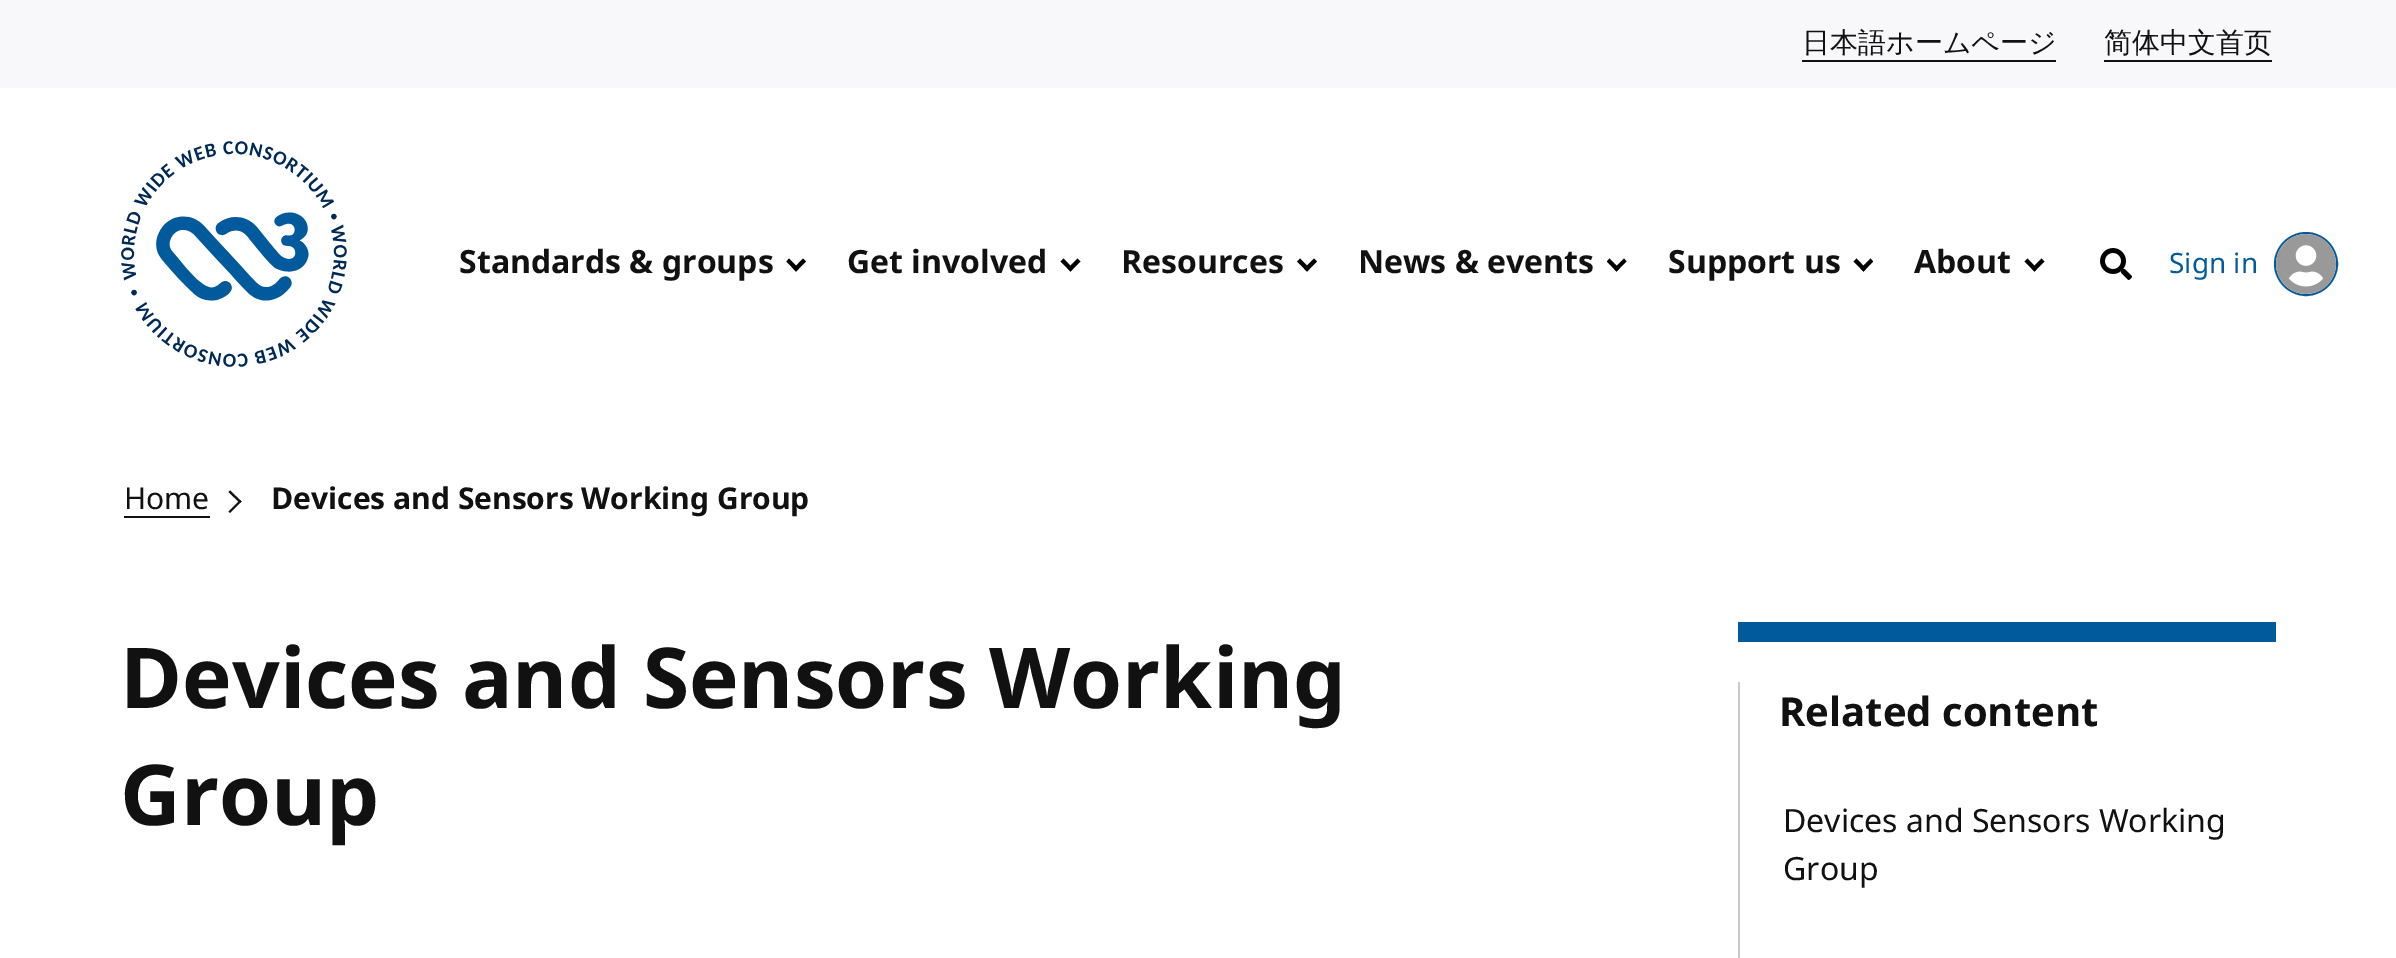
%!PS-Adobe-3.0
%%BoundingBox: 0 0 2396 958
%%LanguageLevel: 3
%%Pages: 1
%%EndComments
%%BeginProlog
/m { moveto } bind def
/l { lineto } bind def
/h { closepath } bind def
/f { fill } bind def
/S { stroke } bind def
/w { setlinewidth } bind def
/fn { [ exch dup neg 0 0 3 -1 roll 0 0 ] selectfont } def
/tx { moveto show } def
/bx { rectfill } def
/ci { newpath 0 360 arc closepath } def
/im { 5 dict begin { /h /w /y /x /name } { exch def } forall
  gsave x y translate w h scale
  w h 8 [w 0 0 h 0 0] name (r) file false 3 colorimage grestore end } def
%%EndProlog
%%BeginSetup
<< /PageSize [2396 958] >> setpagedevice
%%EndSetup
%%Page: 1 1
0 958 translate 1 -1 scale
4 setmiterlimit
1 setgray
0 0 2396 958 bx
0.973 0.973 0.984 setrgbcolor
0 0 2396 88 bx
/WenQuanYiZenHei-Medium 28 fn
0.067 setgray
(日本語ホームページ) 1802 52 tx
1802 60 254 2 bx
(简体中文首页) 2104 52 tx
2104 60 168 2 bx
(image0.raw) 121 141 226 226 im
/NotoSans-Bold 32 fn
(Standards & groups) 459 273 tx
0 setgray
803 258.5 m 806 261.5 l 796 271.5 l 793.5 268.5 l h f
789 258.5 m 799 268.5 l 796 271.5 l 786.5 261.5 l h f
0.067 setgray
(Get involved) 847 273 tx
0 setgray
1077.5 258.5 m 1080.5 261.5 l 1070.5 271.5 l 1067.5 268.5 l h f
1063.5 258.5 m 1073 268.5 l 1070.5 271.5 l 1060.5 261.5 l h f
0.067 setgray
(Resources) 1121 273 tx
0 setgray
1314 258.5 m 1317 261.5 l 1307 271.5 l 1304 268.5 l h f
1300 258.5 m 1310 268.5 l 1307 271.5 l 1297 261.5 l h f
0.067 setgray
(News & events) 1358 273 tx
0 setgray
1624 258.5 m 1626.5 261.5 l 1616.5 271.5 l 1614 268.5 l h f
1609.5 258.5 m 1619.5 268.5 l 1616.5 271.5 l 1607 261.5 l h f
0.067 setgray
(Support us) 1668 273 tx
0 setgray
1870.5 258.5 m 1873 261.5 l 1863.5 271.5 l 1860.5 268.5 l h f
1856.5 258.5 m 1866 268.5 l 1863.5 271.5 l 1853.5 261.5 l h f
0.067 setgray
(About) 1914 273 tx
0 setgray
2041.5 258.5 m 2044.5 261.5 l 2034.5 271.5 l 2031.5 268.5 l h f
2027.5 258.5 m 2037 268.5 l 2034.5 271.5 l 2024.5 261.5 l h f
(image1.raw) 2100 248 32 32 im
/NotoSans-Regular 28 fn
0 0.353 0.612 setrgbcolor
(Sign in) 2169 273 tx
2 w
2306 264 31 ci S
(image2.raw) 2276 234 60 60 im
/NotoSans-Regular 30 fn
0.067 setgray
(Home) 124 509 tx
124 516 86 2 bx
230 490.5 m 241.5 501.5 l 240 503 l 228.5 492 l h f
240 500 m 241.5 501.5 l 230 513 l 228.5 511.5 l h f
/NotoSans-Bold 30 fn
(Devices and Sensors Working Group) 271 509 tx
/NotoSans-Bold 84 fn
(Devices and Sensors Working) 120 708 tx
(Group) 120 825 tx
0 0.353 0.612 setrgbcolor
1738 622 538 20 bx
0.792 0.788 0.788 setrgbcolor
1738 682 2 276 bx
/NotoSans-Bold 40 fn
0.067 setgray
(Related content) 1779 726 tx
/NotoSans-Regular 32 fn
(Devices and Sensors Working) 1783 832 tx
(Group) 1783 880 tx
showpage
%%EOF
